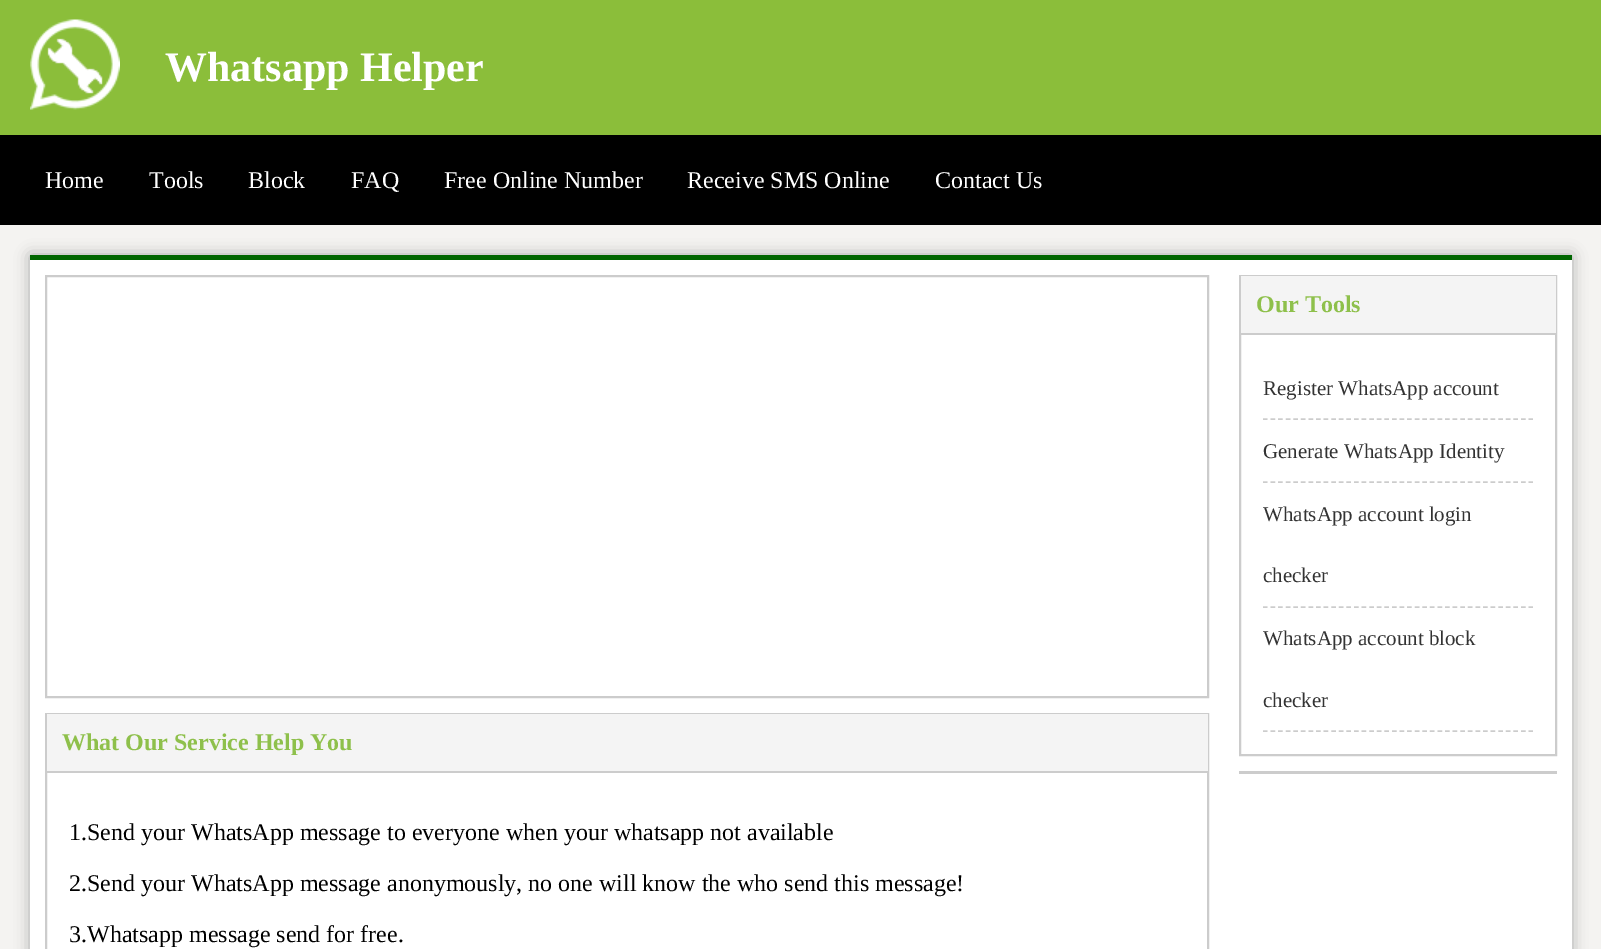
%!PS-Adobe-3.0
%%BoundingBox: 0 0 1601 949
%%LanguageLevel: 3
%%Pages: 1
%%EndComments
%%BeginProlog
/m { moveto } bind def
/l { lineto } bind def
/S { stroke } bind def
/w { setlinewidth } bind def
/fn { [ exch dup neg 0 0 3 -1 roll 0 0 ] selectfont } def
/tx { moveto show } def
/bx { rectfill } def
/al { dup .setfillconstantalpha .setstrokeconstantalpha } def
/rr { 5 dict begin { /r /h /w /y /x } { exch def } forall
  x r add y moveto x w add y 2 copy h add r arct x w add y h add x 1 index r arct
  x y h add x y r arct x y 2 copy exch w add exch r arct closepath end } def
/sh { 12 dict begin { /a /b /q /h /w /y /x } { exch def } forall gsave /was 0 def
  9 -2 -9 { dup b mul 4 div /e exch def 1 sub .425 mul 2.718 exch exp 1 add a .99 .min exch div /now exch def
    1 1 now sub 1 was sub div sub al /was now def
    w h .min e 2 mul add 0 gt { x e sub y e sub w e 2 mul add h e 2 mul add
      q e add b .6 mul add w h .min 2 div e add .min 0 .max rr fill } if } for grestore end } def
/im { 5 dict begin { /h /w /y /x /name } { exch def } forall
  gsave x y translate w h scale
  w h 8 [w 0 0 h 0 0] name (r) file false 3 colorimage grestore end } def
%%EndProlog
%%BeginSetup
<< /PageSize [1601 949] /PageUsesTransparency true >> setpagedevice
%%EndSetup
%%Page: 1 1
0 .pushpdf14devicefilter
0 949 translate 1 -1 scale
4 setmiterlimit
0.957 0.953 0.945 setrgbcolor
0 0 1601 949 bx
0.545 0.745 0.227 setrgbcolor
0 0 1601 135 bx
(image0.raw) 30 19 90 91 im
/LiberationSerif-Bold 42 fn
1 setgray
(Whatsapp Helper) 165 81 tx
0 setgray
0 135 1601 90 bx
/LiberationSerif-Regular 24 fn
1 setgray
(Home) 45 188 tx
(Tools) 149 188 tx
(Block) 248 188 tx
(FAQ) 351 188 tx
(Free Online Number) 444 188 tx
(Receive SMS Online) 687 188 tx
(Contact Us) 935 188 tx
0.667 setgray
30 255 1542 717 0 7.5 1 sh
1 setgray
30 260 1542 689 bx
0 0.4 0 setrgbcolor
30 255 1542 5 bx
0.8 setgray
2 w
1240 276 316 479 rectstroke
0.957 setgray
1241 276 315 57 bx
0.8 setgray
1241 333 315 2 bx
/LiberationSerif-Bold 24 fn
0.557 0.753 0.294 setrgbcolor
(Our Tools) 1256 312 tx
0.8 setgray
1.5 w
[4.5 3.09] 0 setdash
1263 419 m 1533 419 l S
/LiberationSerif-Regular 21 fn
0.2 setgray
(Register WhatsApp account) 1263 395 tx
0.8 setgray
1263 482 m 1533 482 l S
0.2 setgray
(Generate WhatsApp Identity) 1263 458 tx
0.8 setgray
1263 607 m 1533 607 l S
0.2 setgray
(WhatsApp account login) 1263 521 tx
(checker) 1263 582 tx
0.8 setgray
1263 731 m 1533 731 l S
0.2 setgray
(WhatsApp account block) 1263 645 tx
(checker) 1263 707 tx
0.8 setgray
1239 771 318 3 bx
2 w
[] 0 setdash
46 276 1162 421 rectstroke
46 714 1162 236 rectstroke
0.957 setgray
47 714 1161 57 bx
0.8 setgray
47 771 1161 2 bx
/LiberationSerif-Bold 24 fn
0.557 0.753 0.294 setrgbcolor
(What Our Service Help You) 62 750 tx
/LiberationSerif-Regular 24 fn
0 setgray
(1.Send your WhatsApp message to everyone when your whatsapp not available) 69 840 tx
(2.Send your WhatsApp message anonymously, no one will know the who send this message!) 69 891 tx
(3.Whatsapp message send for free.) 69 942 tx
.poppdf14devicefilter showpage
%%EOF
